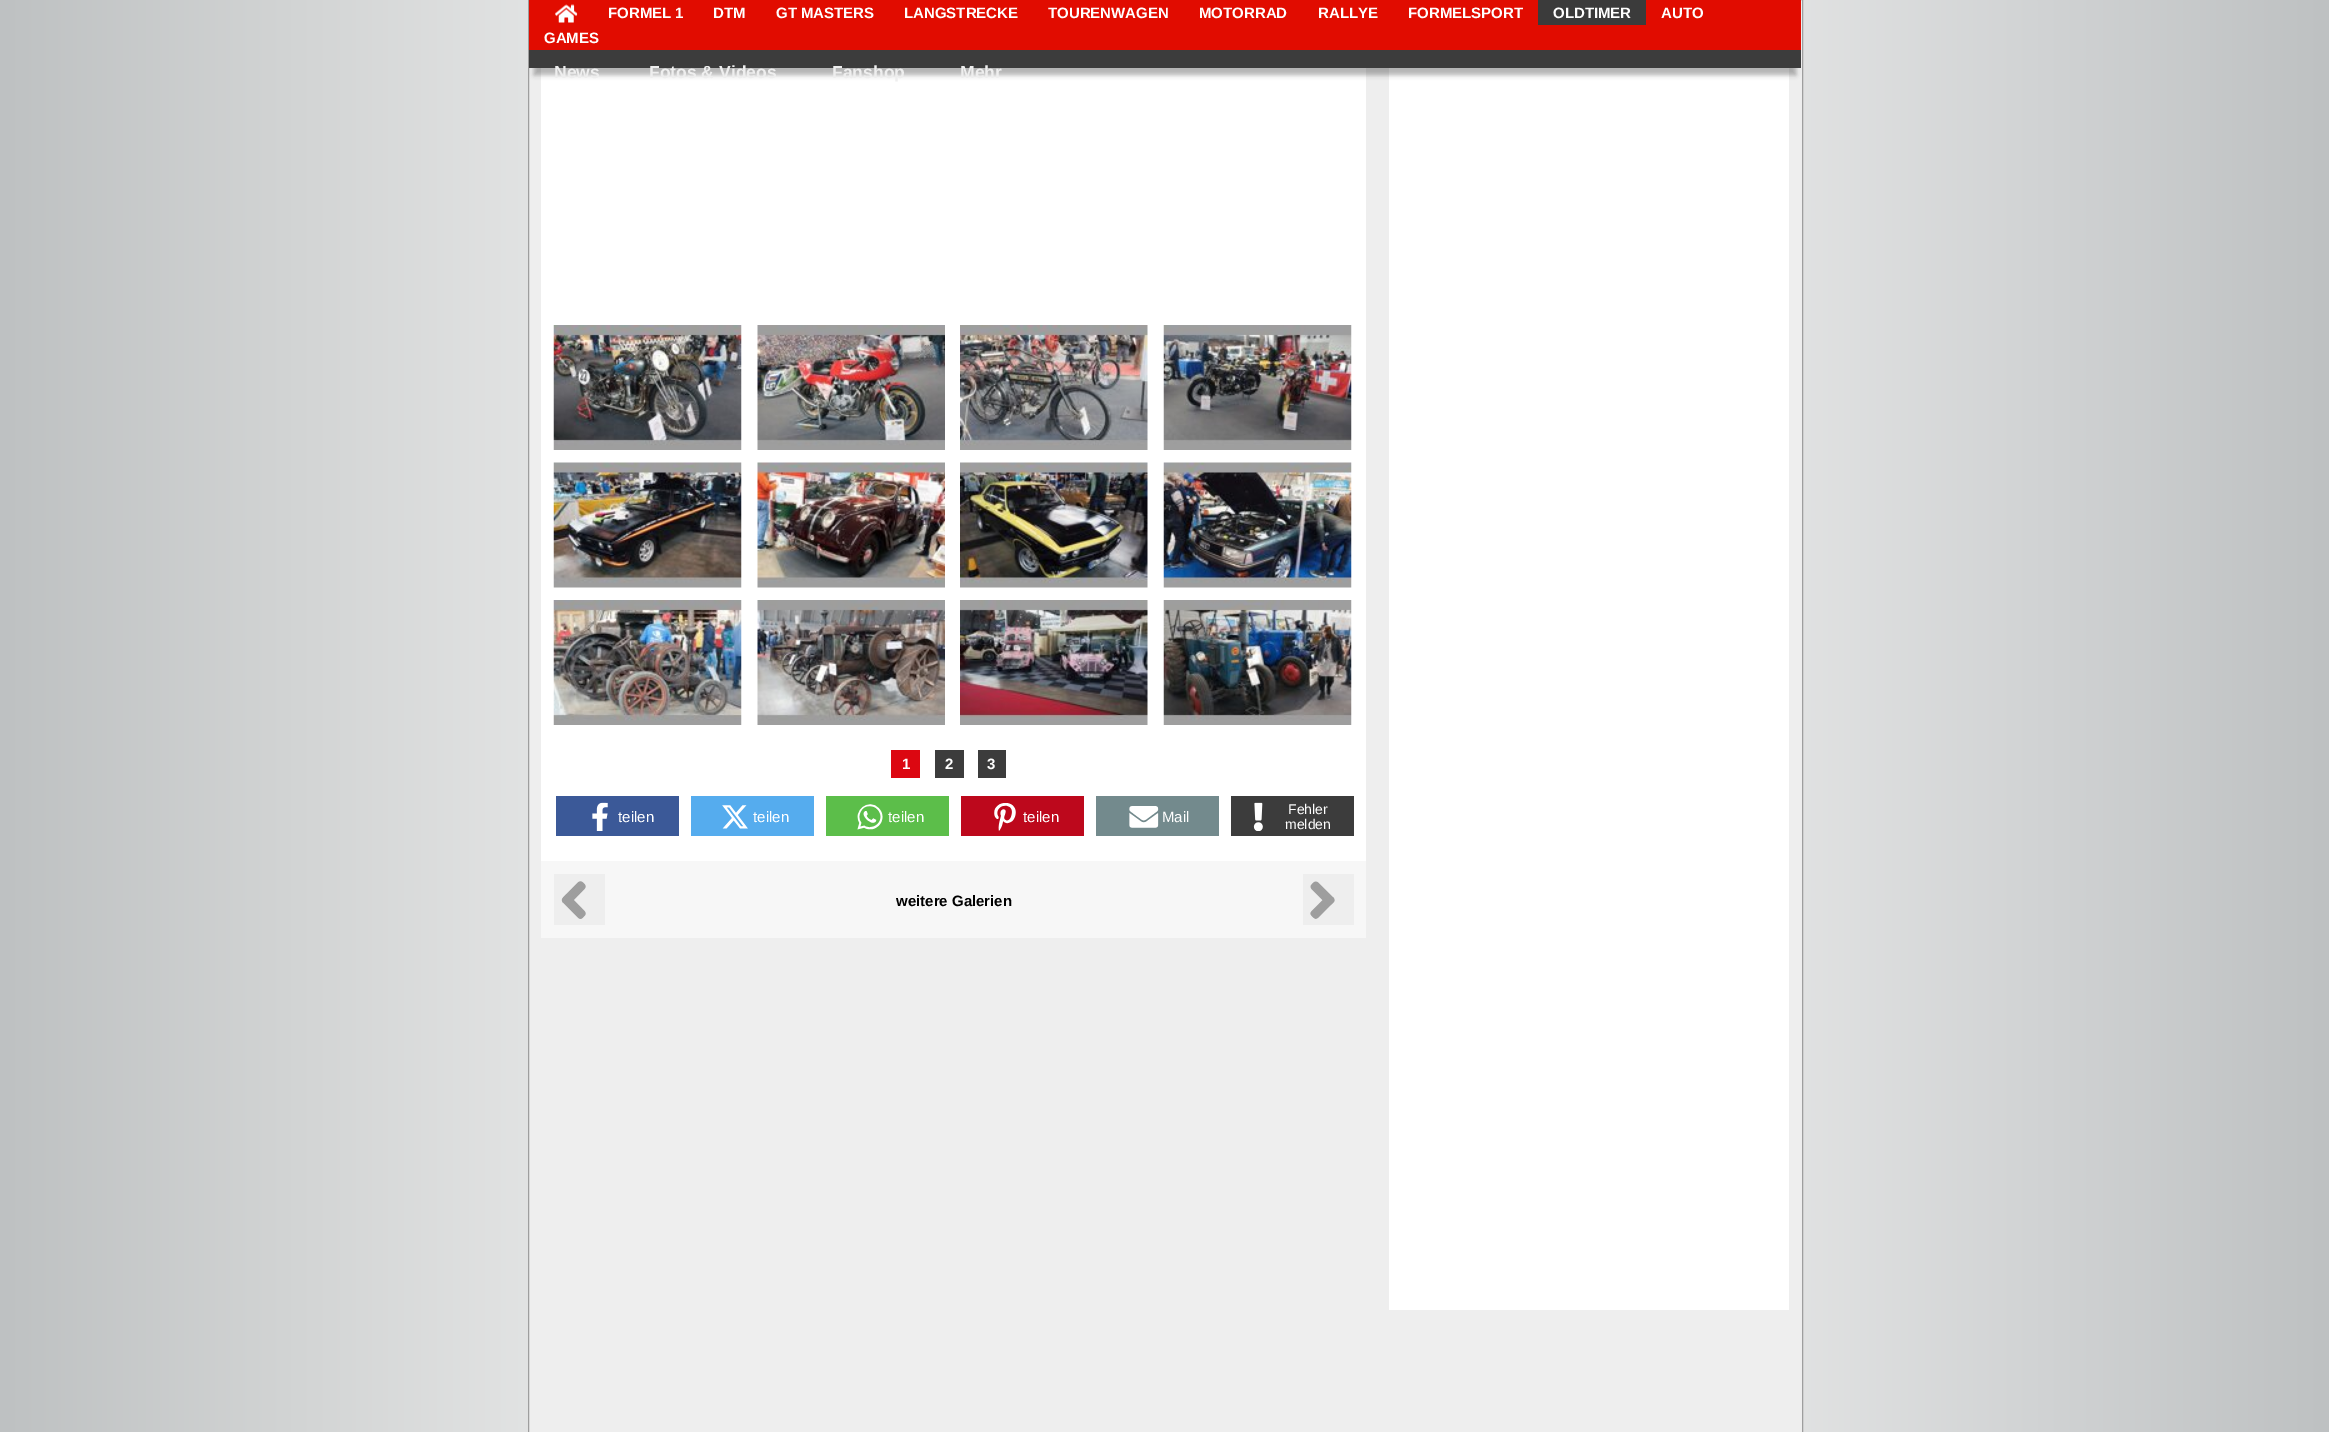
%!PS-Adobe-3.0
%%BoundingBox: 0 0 2329 1432
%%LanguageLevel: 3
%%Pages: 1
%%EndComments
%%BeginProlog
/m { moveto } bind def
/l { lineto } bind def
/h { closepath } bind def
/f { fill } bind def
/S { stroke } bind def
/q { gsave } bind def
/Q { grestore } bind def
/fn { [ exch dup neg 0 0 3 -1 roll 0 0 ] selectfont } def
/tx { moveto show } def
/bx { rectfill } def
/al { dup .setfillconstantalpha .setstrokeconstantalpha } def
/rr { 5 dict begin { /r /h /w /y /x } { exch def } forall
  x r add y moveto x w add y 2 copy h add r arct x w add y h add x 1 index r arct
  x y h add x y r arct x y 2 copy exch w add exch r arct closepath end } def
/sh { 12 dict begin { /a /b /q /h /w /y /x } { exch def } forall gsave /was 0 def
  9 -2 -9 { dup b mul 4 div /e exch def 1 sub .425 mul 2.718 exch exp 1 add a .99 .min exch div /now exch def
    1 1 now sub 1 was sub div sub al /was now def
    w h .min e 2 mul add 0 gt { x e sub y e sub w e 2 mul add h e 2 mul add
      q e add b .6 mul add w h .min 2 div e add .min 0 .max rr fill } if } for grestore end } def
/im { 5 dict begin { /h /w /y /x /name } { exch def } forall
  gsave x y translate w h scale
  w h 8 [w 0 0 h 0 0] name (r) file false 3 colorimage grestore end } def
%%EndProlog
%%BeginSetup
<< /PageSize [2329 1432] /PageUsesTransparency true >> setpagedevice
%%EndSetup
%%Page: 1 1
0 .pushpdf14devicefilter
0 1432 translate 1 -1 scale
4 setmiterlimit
1 setgray
0 0 2329 1432 bx
q 0 0 m 2329 0 l 2329 1432 l 0 1432 l h clip newpath
<< /ShadingType 2 /ColorSpace /DeviceRGB /Coords [0 396 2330 396] /Extend [true true] /Function << /FunctionType 3 /Domain [0 1] /Functions [<< /FunctionType 2 /Domain [0 1] /C0 [0.745 0.757 0.761] /C1 [0.949 0.949 0.949] /N 1 >> << /FunctionType 2 /Domain [0 1] /C0 [0.949 0.949 0.949] /C1 [0.949 0.949 0.949] /N 1 >> << /FunctionType 2 /Domain [0 1] /C0 [0.949 0.949 0.949] /C1 [0.745 0.757 0.761] /N 1 >>] /Bounds [0.33 0.66] /Encode [0 1 0 1 0 1] >> >> shfill Q
0.933 setgray
528.5 -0.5 m 1802.5 -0.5 l 1802.5 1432.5 l 528.5 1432.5 l h q f Q
0.62 setgray
S
0.235 setgray
529 50 1272 5 bx
0.882 0.047 0 setrgbcolor
529 0 1272 50 bx
(image0.raw) 555 4 23 19 im
/LiberationSans-Bold 15 fn
1 setgray
(FORMEL 1) 608 18 tx
(DTM) 713 18 tx
(GT MASTERS) 776 18 tx
(LANGSTRECKE) 904 18 tx
(TOURENWAGEN) 1048 18 tx
(MOTORRAD) 1199 18 tx
(RALLYE) 1318 18 tx
(FORMELSPORT) 1408 18 tx
0.231 setgray
1538 0 108 25 bx
1 setgray
(OLDTIMER) 1553 18 tx
(AUTO) 1661 18 tx
(GAMES) 544 43 tx
541 68 825 793 bx
1389 68 400 1242 bx
0 setgray
534 63 1262 12 0 2.5 0.3 sh
0.235 setgray
529 55 1272 13 bx
/LiberationSans-Bold 17.5 fn
0.933 setgray
(News) 554 78 tx
(Fotos & Videos) 649 78 tx
(Fanshop) 832 78 tx
(Mehr) 960 78 tx
(image1.raw) 553 325 189 125 im
(image2.raw) 757 325 188 125 im
(image3.raw) 960 325 188 125 im
(image4.raw) 1163 325 189 125 im
(image5.raw) 553 462 189 126 im
(image6.raw) 757 462 188 126 im
(image7.raw) 960 462 188 126 im
(image8.raw) 1163 462 189 126 im
(image9.raw) 553 600 189 125 im
(image10.raw) 757 600 188 125 im
(image11.raw) 960 600 188 125 im
(image12.raw) 1163 600 189 125 im
0.863 0.027 0.067 setrgbcolor
891 750 29 28 bx
/LiberationSans-Bold 15 fn
1 setgray
(1) 902 769 tx
0.235 setgray
935 750 29 28 bx
1 setgray
(2) 945 769 tx
0.235 setgray
978 750 28 28 bx
1 setgray
(3) 987 769 tx
0.231 0.349 0.596 setrgbcolor
556 796 123 40 bx
(image13.raw) 592 802 16 29 im
/LiberationSans-Regular 15 fn
1 setgray
(teilen) 618 822 tx
0.333 0.675 0.933 setrgbcolor
691 796 123 40 bx
(image14.raw) 722 805 26 24 im
1 setgray
(teilen) 753 822 tx
0.361 0.745 0.29 setrgbcolor
826 796 123 40 bx
(image15.raw) 857 804 26 26 im
1 setgray
(teilen) 888 822 tx
0.741 0.031 0.11 setrgbcolor
961 796 123 40 bx
(image16.raw) 994 803 22 28 im
1 setgray
(teilen) 1023 822 tx
0.451 0.541 0.553 setrgbcolor
1096 796 123 40 bx
(image17.raw) 1129 806 30 22 im
1 setgray
(Mail) 1162 822 tx
0.235 setgray
1231 796 123 40 bx
(image18.raw) 1253 802 10 29 im
/LiberationSans-Regular 14 fn
1 setgray
(Fehler) 1288 814 tx
(melden) 1285 829 tx
0.969 setgray
541 861 825 77 bx
0.933 setgray
554 874 51 51 bx
(image19.raw) 561 881 25 38 im
/LiberationSans-Bold 15 fn
0 setgray
(weitere Galerien) 896 906 tx
0.933 setgray
1303 874 51 51 bx
(image20.raw) 1310 881 25 38 im
.poppdf14devicefilter showpage
%%EOF
